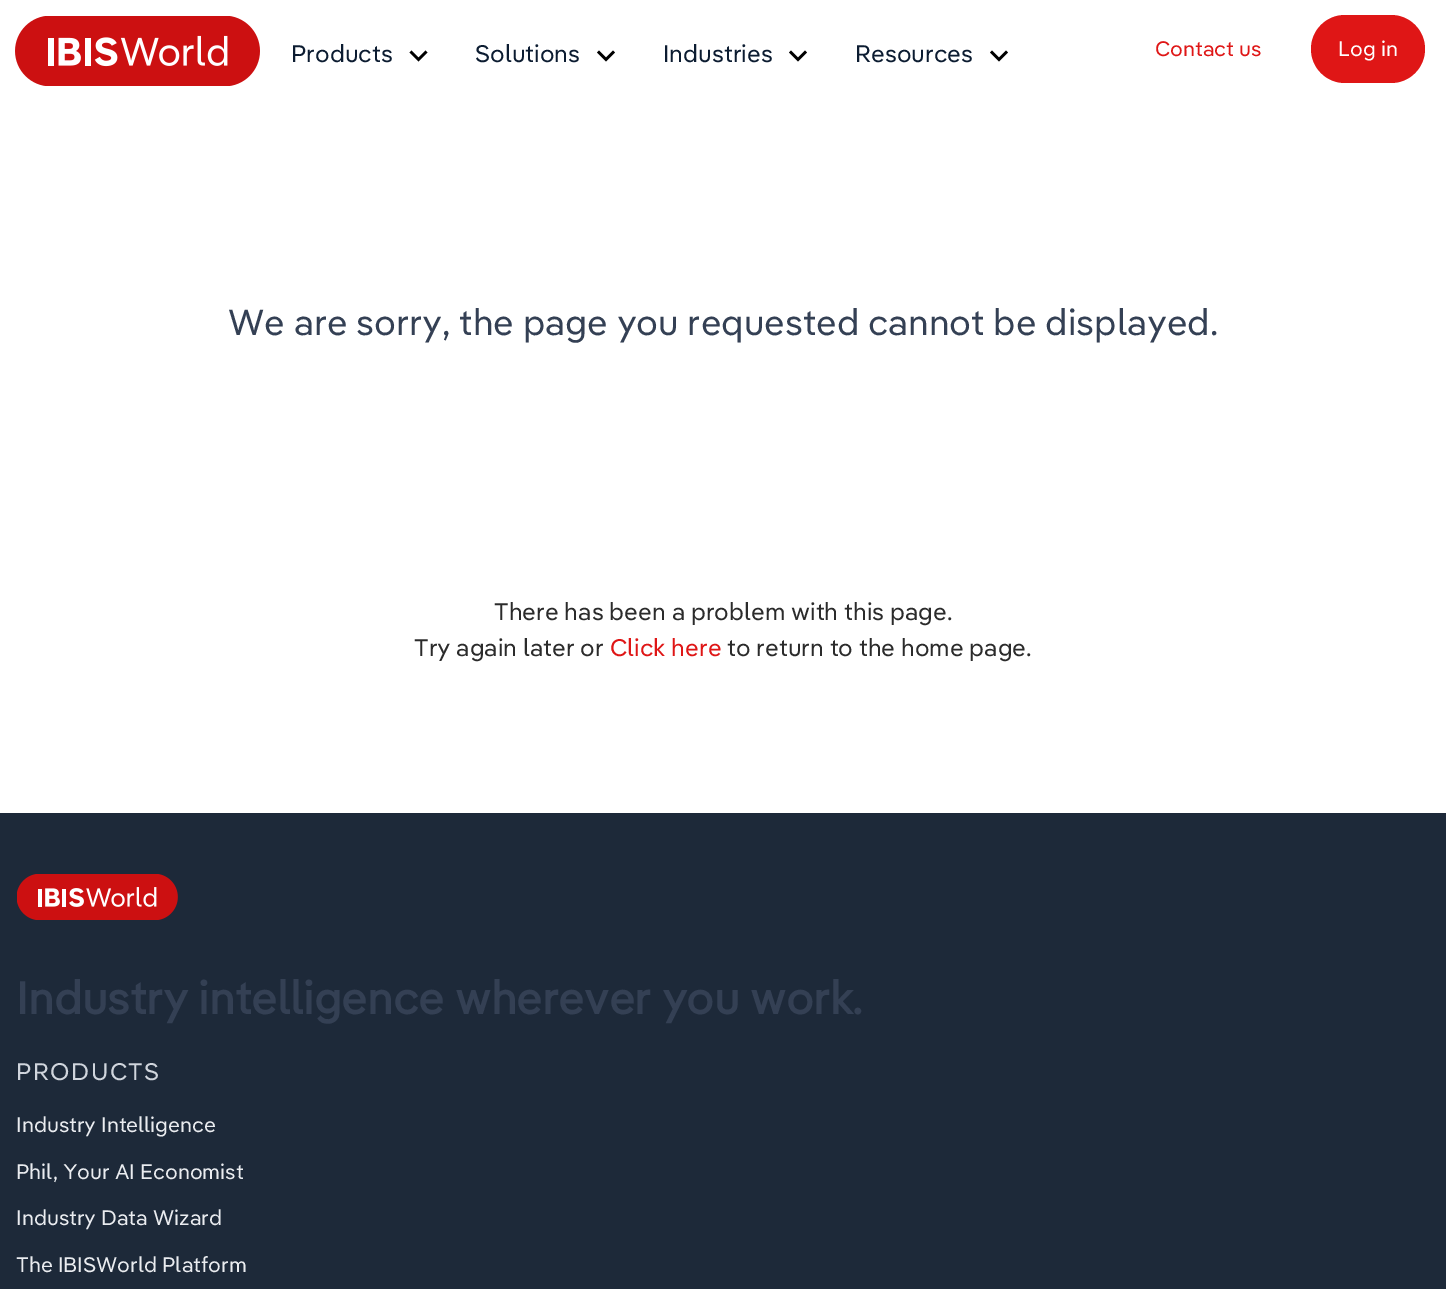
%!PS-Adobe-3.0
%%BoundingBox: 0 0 1446 1289
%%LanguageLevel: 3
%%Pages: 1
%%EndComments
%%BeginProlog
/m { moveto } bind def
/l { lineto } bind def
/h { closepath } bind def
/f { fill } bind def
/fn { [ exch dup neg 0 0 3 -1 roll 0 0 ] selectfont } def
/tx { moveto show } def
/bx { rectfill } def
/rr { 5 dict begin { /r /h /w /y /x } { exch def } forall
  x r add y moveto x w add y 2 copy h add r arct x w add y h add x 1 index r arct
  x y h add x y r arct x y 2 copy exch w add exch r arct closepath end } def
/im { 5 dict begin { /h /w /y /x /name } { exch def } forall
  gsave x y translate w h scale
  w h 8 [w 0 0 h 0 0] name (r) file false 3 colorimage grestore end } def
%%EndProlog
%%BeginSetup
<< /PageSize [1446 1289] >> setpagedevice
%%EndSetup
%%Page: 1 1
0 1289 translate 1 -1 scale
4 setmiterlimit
1 setgray
0 0 1446 1289 bx
(image0.raw) 15 16 245 70 im
/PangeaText-Regular 24 fn
0.047 0.11 0.192 setrgbcolor
(Products) 291 62 tx
0 setgray
425.5 50.5 m 418.5 57.5 l 411.5 50.5 l 409.5 52.5 l 418.5 61.5 l 427.5 52.5 l h f
0.047 0.11 0.192 setrgbcolor
(Solutions) 475 62 tx
0 setgray
613 50.5 m 606 57.5 l 599 50.5 l 597 52.5 l 606 61.5 l 615 52.5 l h f
0.047 0.11 0.192 setrgbcolor
(Industries) 663 62 tx
0 setgray
805 50.5 m 798 57.5 l 791 50.5 l 789 52.5 l 798 61.5 l 807 52.5 l h f
0.047 0.11 0.192 setrgbcolor
(Resources) 855 62 tx
0 setgray
1006 50.5 m 999 57.5 l 992 50.5 l 990 52.5 l 999 61.5 l 1008 52.5 l h f
/PangeaText-Regular 21 fn
0.875 0.086 0.086 setrgbcolor
(Contact us) 1155 56 tx
1311 15 114 68 34 rr f
1 setgray
(Log in) 1338 56 tx
/PangeaText-Regular 36 fn
0.204 0.251 0.329 setrgbcolor
(We are sorry, the page you requested cannot be displayed.) 228 335 tx
/PangeaText-Regular 24 fn
0.169 setgray
(There has been a problem with this page.) 494 620 tx
(Try again later or) 414 656 tx
0.875 0.086 0.086 setrgbcolor
(Click here) 610 656 tx
0.169 setgray
(to return to the home page.) 727 656 tx
0.114 0.161 0.224 setrgbcolor
0 813 1446 476 bx
(image1.raw) 17 874 161 46 im
/PangeaText-Bold 45 fn
0.204 0.251 0.329 setrgbcolor
(Industry intelligence wherever you work.) 16 1014 tx
/PangeaText-Regular 24 fn
0.816 0.835 0.867 setrgbcolor
16 1080 m 1.5 0 (PRODUCTS) ashow
/PangeaText-Regular 21 fn
0.918 0.925 0.941 setrgbcolor
(Industry Intelligence) 16 1132 tx
(Phil, Your AI Economist) 16 1179 tx
(Industry Data Wizard) 16 1225 tx
(The IBISWorld Platform) 16 1272 tx
showpage
%%EOF
